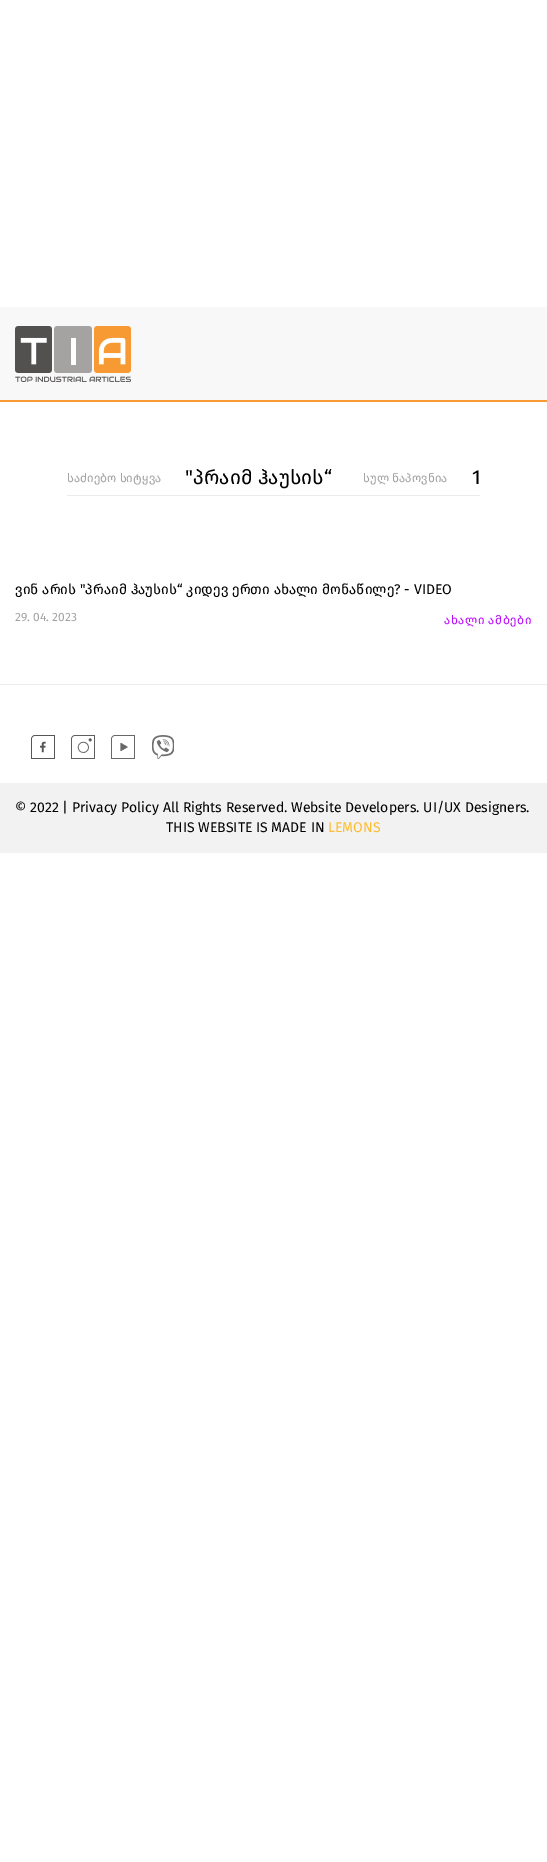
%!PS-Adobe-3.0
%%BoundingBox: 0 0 547 1862
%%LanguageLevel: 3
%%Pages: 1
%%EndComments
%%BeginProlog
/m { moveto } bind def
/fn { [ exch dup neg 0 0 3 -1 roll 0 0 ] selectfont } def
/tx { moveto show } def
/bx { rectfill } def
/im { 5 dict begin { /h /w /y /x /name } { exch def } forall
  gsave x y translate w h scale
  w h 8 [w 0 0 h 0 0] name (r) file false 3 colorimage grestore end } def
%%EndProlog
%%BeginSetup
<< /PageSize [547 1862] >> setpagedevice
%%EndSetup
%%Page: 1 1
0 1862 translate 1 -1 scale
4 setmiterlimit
1 setgray
0 0 547 1862 bx
0.973 setgray
0 307 547 93 bx
0.973 0.604 0.204 setrgbcolor
0 400 547 2 bx
(image0.raw) 15 326 116 56 im
0.922 setgray
67 495 413 1 bx
/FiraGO-Regular 12 fn
0.639 setgray
(საძიებო სიტყვა) 67 482 tx
/FiraGO-Regular 20 fn
0 setgray
("პრაიმ ჰაუსის“) 185 484 tx
/FiraGO-Regular 12 fn
0.639 setgray
(სულ ნაპოვნია) 363 482 tx
/FiraGO-Regular 20 fn
0 setgray
(1) 472 484 tx
/FiraGO-Regular 14 fn
(ვინ არის "პრაიმ ჰაუსის“ კიდევ ერთი ახალი მონაწილე? - VIDEO) 15 594 tx
/FiraGO-Regular 12 fn
0.639 setgray
(29. 04. 2023) 15 621 tx
0.741 0.031 1 setrgbcolor
444 624 m 0.5 0 (ახალი ამბები) ashow
0.922 setgray
0 684 547 1 bx
(image1.raw) 31 735 24 24 im
(image2.raw) 71 735 24 24 im
(image3.raw) 111 735 24 24 im
(image4.raw) 152 735 22 24 im
0.949 setgray
0 783 547 70 bx
/FiraGO-Regular 14 fn
0 setgray
(© 2022 | Privacy Policy All Rights Reserved. Website Developers. UI/UX Designers.) 15 812 tx
(THIS WEBSITE IS MADE IN) 166 832 tx
1 0.741 0.18 setrgbcolor
(LEMONS) 328 832 tx
showpage
%%EOF
